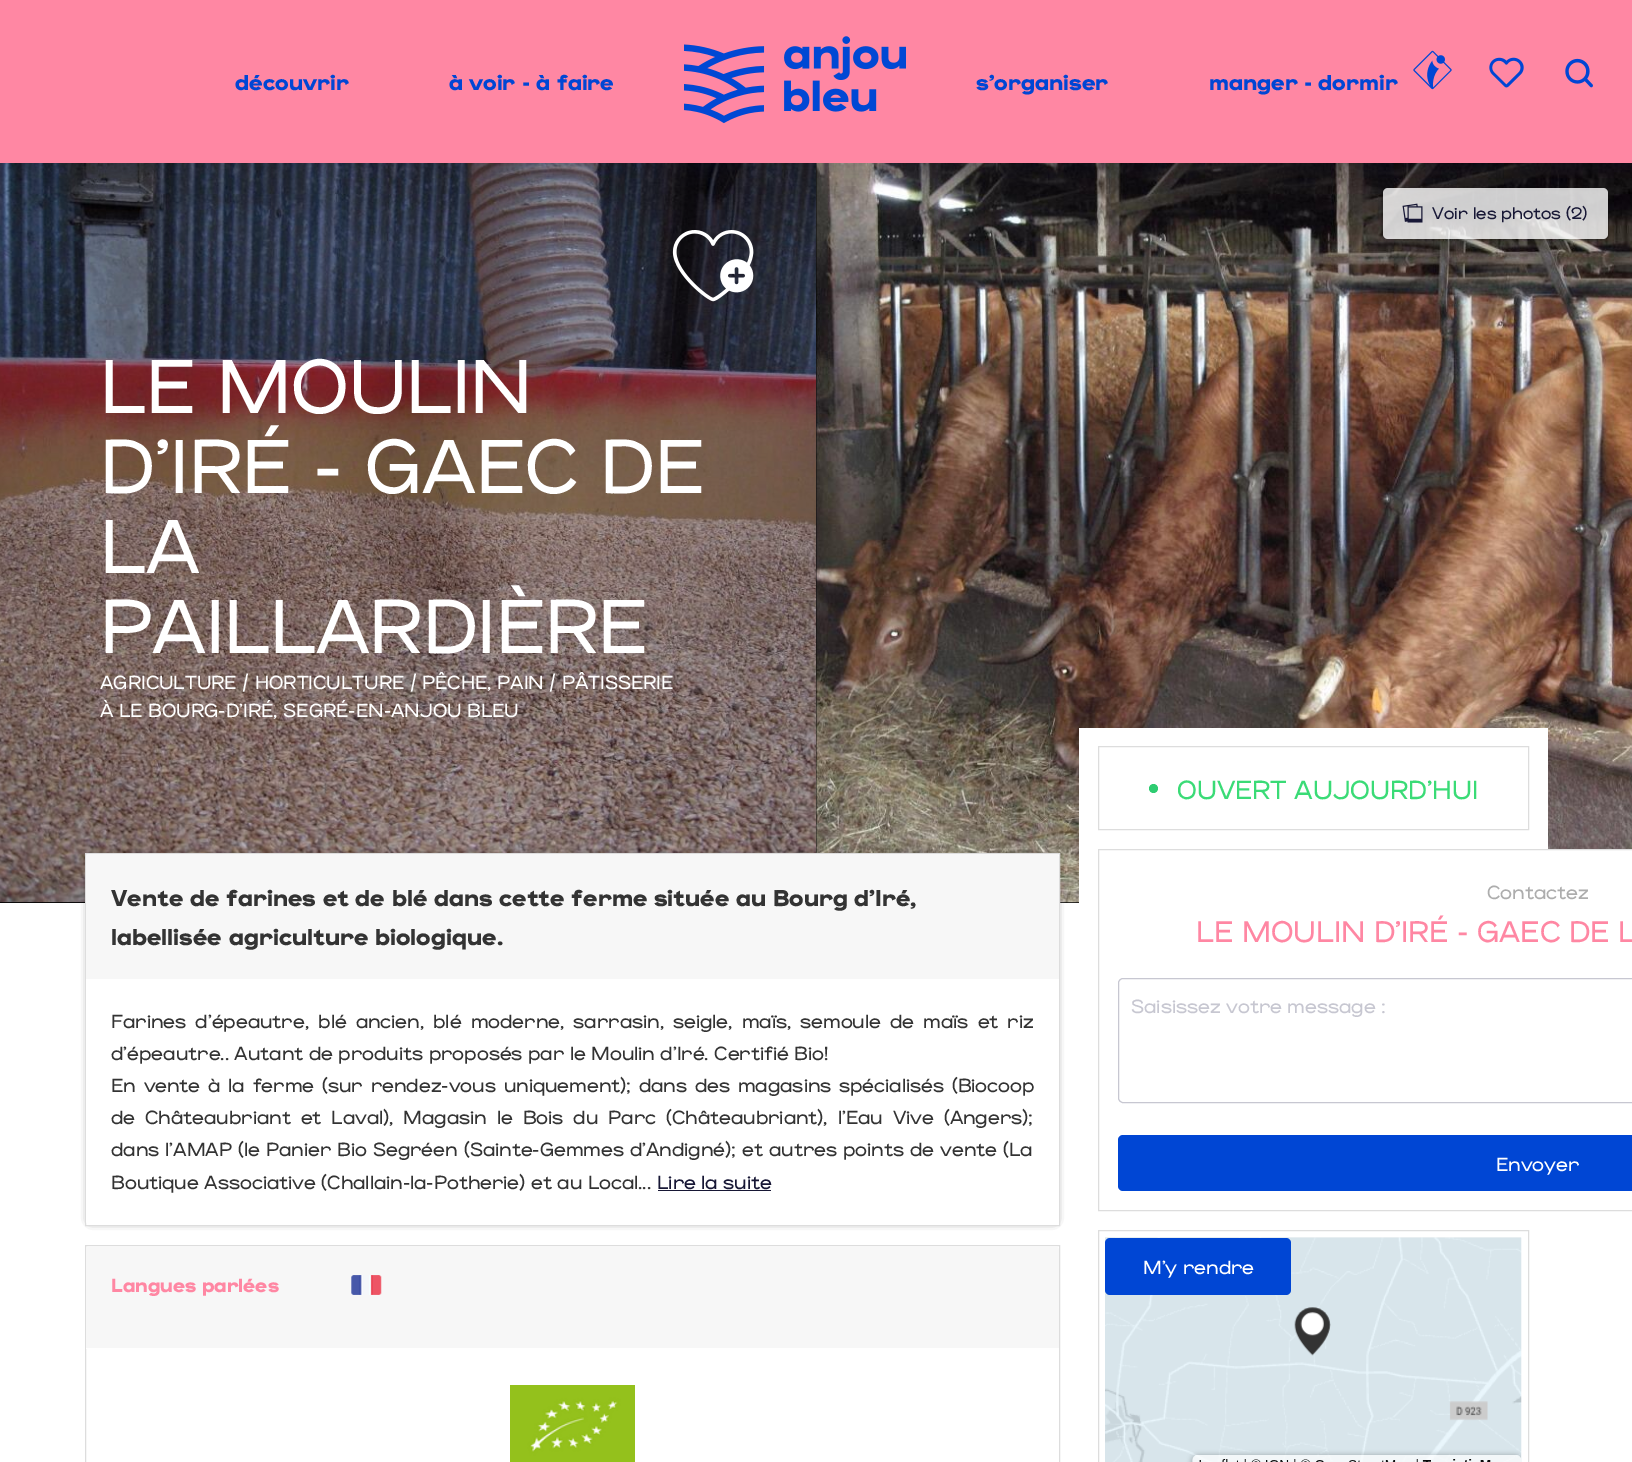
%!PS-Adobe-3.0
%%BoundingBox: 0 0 1632 1462
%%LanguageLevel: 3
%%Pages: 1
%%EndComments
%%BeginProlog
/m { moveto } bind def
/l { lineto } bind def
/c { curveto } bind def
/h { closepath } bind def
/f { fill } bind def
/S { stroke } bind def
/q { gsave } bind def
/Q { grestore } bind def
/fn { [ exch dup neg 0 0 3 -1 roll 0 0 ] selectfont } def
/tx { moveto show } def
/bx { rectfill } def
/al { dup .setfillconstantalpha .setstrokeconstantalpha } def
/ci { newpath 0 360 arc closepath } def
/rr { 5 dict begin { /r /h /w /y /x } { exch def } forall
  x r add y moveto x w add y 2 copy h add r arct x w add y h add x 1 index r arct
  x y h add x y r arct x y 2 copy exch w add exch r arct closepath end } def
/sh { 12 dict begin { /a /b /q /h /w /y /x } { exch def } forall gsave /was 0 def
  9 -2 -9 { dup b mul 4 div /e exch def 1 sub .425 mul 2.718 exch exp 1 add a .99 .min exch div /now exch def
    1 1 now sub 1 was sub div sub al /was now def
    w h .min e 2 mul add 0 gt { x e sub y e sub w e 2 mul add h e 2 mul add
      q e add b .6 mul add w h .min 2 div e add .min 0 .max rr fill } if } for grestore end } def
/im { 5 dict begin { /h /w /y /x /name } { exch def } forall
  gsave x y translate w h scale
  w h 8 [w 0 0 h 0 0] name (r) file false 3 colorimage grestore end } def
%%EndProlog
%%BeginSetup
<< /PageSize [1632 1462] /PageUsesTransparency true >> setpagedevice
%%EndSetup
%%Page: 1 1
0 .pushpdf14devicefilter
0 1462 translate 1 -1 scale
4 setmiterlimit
1 setgray
0 0 1632 1462 bx
0 setgray
0 163 1079 740 bx
(image4.raw) 0 163 817 740 im
(image5.raw) 816 163 816 740 im
q
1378 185 m 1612 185 l 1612 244 l 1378 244 l h 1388 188 m 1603 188 l 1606 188 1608 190 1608 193 c 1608 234 l 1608 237 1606 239 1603 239 c 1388 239 l 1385 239 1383 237 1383 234 c 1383 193 l 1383 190 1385 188 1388 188 c h eoclip newpath
1381 188 228 53 6 0.5 0.14 sh
Q
0.8 al
1 setgray
1383 188 225 51 5 rr f
1 al
(image6.raw) 1402 203 21 20 im
0.09 0.09 0.208 setrgbcolor
31 31 1570 100 0 25 0.5 sh
-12 -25 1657 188 0 12.5 0.15 sh
1 0.529 0.639 setrgbcolor
0 0 1632 163 bx
/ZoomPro-Bold 22.5 fn
0 0.275 0.831 setrgbcolor
(découvrir) 235 90 tx
(à voir - à faire) 449 90 tx
(image0.raw) 684 36 222 88 im
(s'organiser) 976 90 tx
(manger - dormir) 1209 90 tx
(image1.raw) 1413 50 39 40 im
(image2.raw) 1489 57 35 31 im
(image3.raw) 1565 58 28 30 im
/ZoomPro-Regular 17.5 fn
0.09 0.09 0.208 setrgbcolor
(Voir les photos \(2\)) 1432 219 tx
(image7.raw) 672 230 82 72 im
/ZoomPro-Regular 80 fn
1 setgray
(LE MOULIN) 100 413 tx
(D'IRÉ - GAEC DE) 100 493 tx
(LA) 100 573 tx
(PAILLARDIÈRE) 100 653 tx
/ZoomPro-Regular 20 fn
(AGRICULTURE / HORTICULTURE / PÊCHE, PAIN / PÂTISSERIE) 100 689 tx
(À LE BOURG-D'IRÉ, SEGRÉ-EN-ANJOU BLEU) 100 717 tx
0 setgray
91 859 963 361 0 4.5 1 sh
1 setgray
85.5 853.5 m 1059.5 853.5 l 1059.5 1225.5 l 85.5 1225.5 l h q f Q
0.867 setgray
S
0.969 setgray
90 854 m 1055 854 l 1057 854 1059 856 1059 858 c 1059 980 l 86 980 l 86 858 l 86 856 88 854 90 854 c h f
/ZoomPro-Bold 24 fn
0.2 setgray
(Vente de farines et de blé dans cette ferme située au Bourg d'Iré,) 111 906 tx
(labellisée agriculture biologique.) 111 945 tx
1 setgray
86 979 m 1059 979 l 1059 1221 l 1059 1223 1057 1225 1055 1225 c 90 1225 l 88 1225 86 1223 86 1221 c h f
/ZoomPro-Regular 20 fn
0.2 setgray
111 1028 m 3.6 0 32 (Farines d'épeautre, blé ancien, blé moderne, sarrasin, seigle, maïs, semoule de maïs et riz) widthshow
(d'épeautre.. Autant de produits proposés par le Moulin d'Iré. Certifié Bio!) 111 1060 tx
111 1092 m 2.25 0 32 (En vente à la ferme \(sur rendez-vous uniquement\); dans des magasins spécialisés \(Biocoop) widthshow
111 1124 m 4.4 0 32 (de Châteaubriant et Laval\), Magasin le Bois du Parc \(Châteaubriant\), l'Eau Vive \(Angers\);) widthshow
111 1156 m 0.5 0 32 (dans l'AMAP \(le Panier Bio Segréen \(Sainte-Gemmes d'Andigné\); et autres points de vente \(La) widthshow
(Boutique Associative \(Challain-la-Potherie\) et au Local...) 111 1189 tx
0.09 0.09 0.208 setrgbcolor
(Lire la suite) 657 1189 tx
658 1190 113 1 bx
0.867 setgray
85.5 1245.5 974 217 rectstroke
0.969 setgray
90 1246 m 1055 1246 l 1057 1246 1059 1248 1059 1250 c 1059 1349 l 86 1349 l 86 1250 l 86 1248 88 1246 90 1246 c h f
/ZoomPro-Bold 20 fn
1 0.529 0.639 setrgbcolor
(Langues parlées) 111 1292 tx
(image8.raw) 351 1275 31 20 im
1 setgray
86 1348 973 1 bx
(image9.raw) 510 1385 125 77 im
1079 728 469 175 bx
0.867 setgray
1098.5 746.5 430 83 rectstroke
0.18 0.8 0.443 setrgbcolor
1153.5 788.5 4.5 ci f
/ZoomPro-Regular 27.5 fn
0.227 0.859 0.463 setrgbcolor
(OUVERT AUJOURD'HUI) 1177 799 tx
1 setgray
1548 850 84 53 bx
0.867 setgray
1098.5 849.5 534 361 rectstroke
/ZoomPro-Regular 20 fn
0.678 setgray
(Contactez) 1487 899 tx
/ZoomPro-Regular 31.25 fn
1 0.529 0.639 setrgbcolor
(LE MOULIN D'IRÉ - GAEC DE L) 1196 942 tx
0.78 0.78 0.82 setrgbcolor
1118.5 978.5 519 124 4.5 rr S
/ZoomPro-Regular 20 fn
(Saisissez votre message :) 1131 1013 tx
0 0.275 0.831 setrgbcolor
1118 1135 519 56 5 rr f
1 setgray
(Envoyer) 1496 1171 tx
0.867 setgray
1098.5 1230.5 430 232 rectstroke
(image10.raw) 1105 1237 417 225 im
0 0.275 0.831 setrgbcolor
1105 1238 186 57 5 rr f
1 setgray
(M'y rendre) 1143 1274 tx
.poppdf14devicefilter showpage
%%EOF
